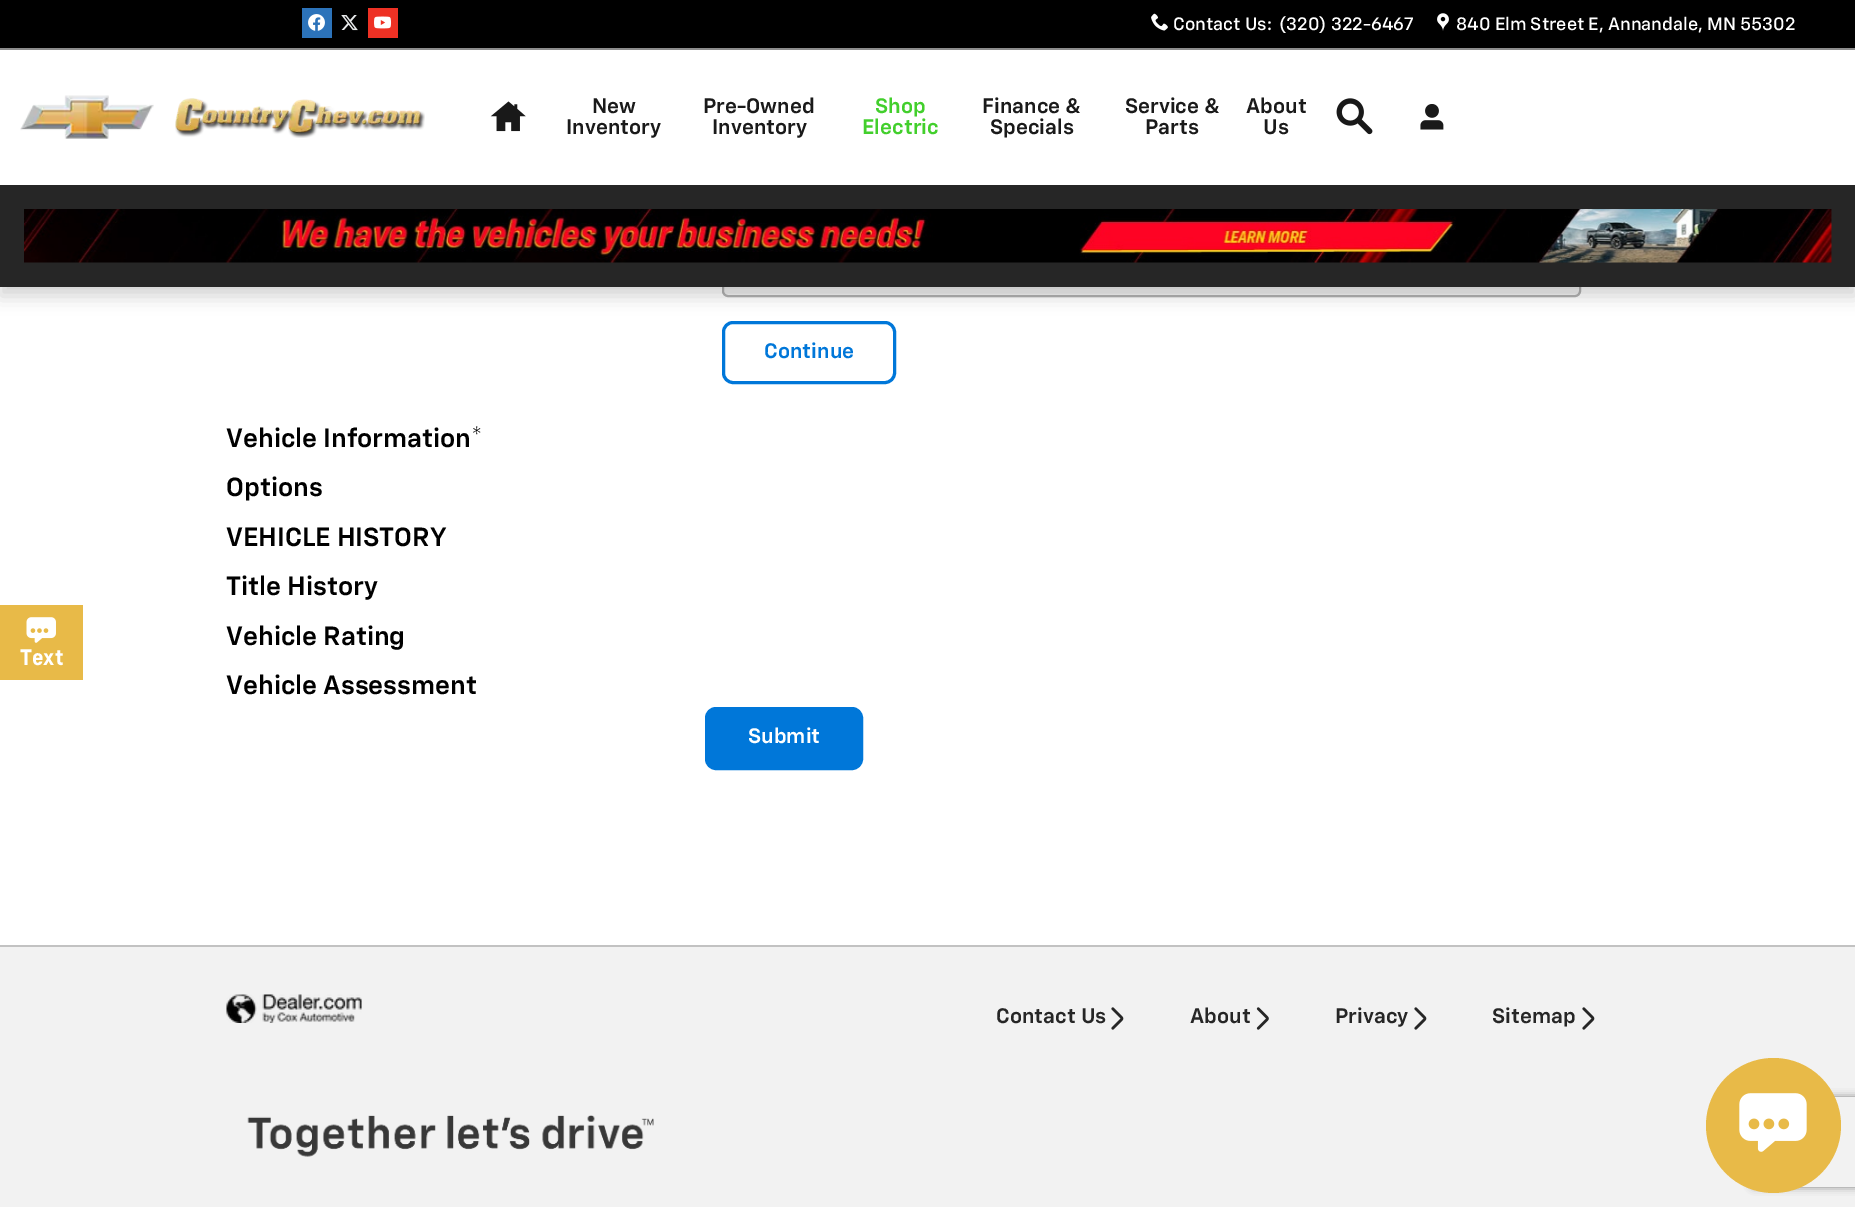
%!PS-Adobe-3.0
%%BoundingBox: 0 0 1855 1207
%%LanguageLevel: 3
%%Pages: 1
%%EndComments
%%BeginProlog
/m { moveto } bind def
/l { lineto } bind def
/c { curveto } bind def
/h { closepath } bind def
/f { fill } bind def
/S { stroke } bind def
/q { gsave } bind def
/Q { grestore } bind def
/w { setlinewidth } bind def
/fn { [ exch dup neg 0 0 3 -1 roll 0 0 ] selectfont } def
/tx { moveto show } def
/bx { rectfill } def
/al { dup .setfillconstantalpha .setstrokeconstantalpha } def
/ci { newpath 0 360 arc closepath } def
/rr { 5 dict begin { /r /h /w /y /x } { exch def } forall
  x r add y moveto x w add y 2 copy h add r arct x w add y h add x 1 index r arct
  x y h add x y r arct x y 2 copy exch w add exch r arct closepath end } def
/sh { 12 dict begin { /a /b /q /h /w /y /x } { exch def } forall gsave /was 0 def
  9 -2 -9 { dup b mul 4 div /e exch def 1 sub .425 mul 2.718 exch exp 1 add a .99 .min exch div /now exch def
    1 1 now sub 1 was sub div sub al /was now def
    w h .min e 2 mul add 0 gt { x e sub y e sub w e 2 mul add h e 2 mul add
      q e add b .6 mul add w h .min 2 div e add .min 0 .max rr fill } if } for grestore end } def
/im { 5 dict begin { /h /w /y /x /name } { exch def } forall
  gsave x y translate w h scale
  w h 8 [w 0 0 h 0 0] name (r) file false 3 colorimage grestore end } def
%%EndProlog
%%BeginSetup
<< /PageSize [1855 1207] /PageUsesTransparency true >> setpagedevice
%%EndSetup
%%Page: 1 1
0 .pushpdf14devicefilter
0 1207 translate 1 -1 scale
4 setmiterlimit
1 setgray
0 0 1855 1207 bx
0.949 setgray
723 214 857 82 5 rr q f Q
0.702 setgray
2 w
S
0 0.467 0.851 setrgbcolor
3 w
723.5 322.5 171 60 9.5 rr S
0 setgray
0 9 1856 287 0 9 0.18 sh
1 setgray
0 50 1855 135 bx
0 setgray
0 0 1855 48 bx
0.549 setgray
0 48 1855 2 bx
(image0.raw) 302 8 30 30 im
(image1.raw) 341 15 17 16 im
(image2.raw) 368 8 30 30 im
(image3.raw) 1151 13 17 18 im
/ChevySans-Medium 18 fn
1 setgray
(Contact Us:) 1173 30 tx
(\(320\) 322-6467) 1279 30 tx
(image4.raw) 1437 13 12 18 im
(840 Elm Street E, Annandale, MN 55302) 1456 30 tx
(image5.raw) 20 95 134 44 im
(image6.raw) 175 98 250 40 im
(image7.raw) 490 101 36 31 im
/ChevySans-SemiBold 21 fn
0.102 setgray
(New) 592 113 tx
(Inventory) 566 134 tx
(Pre-Owned) 703 113 tx
(Inventory) 712 134 tx
0.259 0.812 0.173 setrgbcolor
(Shop) 875 113 tx
(Electric) 862 134 tx
0.102 setgray
(Finance &) 982 113 tx
(Specials) 990 134 tx
(Service &) 1125 113 tx
(Parts) 1145 134 tx
(About) 1246 113 tx
(Us) 1263 134 tx
(image8.raw) 1336 98 37 37 im
(image9.raw) 1420 104 24 26 im
0.149 setgray
0 185 1855 102 bx
(image10.raw) 24 209 1808 54 im
0.91 0.729 0.282 setrgbcolor
0 605 83 75 bx
(image11.raw) 26 617 30 26 im
/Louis-Bold 21 fn
1 setgray
(Text) 20 665 tx
/ChevySans-SemiBold 21 fn
0 0.467 0.851 setrgbcolor
(Continue) 764 358 tx
/ChevySans-SemiBold 26.25 fn
0 setgray
(Vehicle Information*) 226 447 tx
(Options) 226 496 tx
(VEHICLE HISTORY) 226 546 tx
(Title History) 226 595 tx
(Vehicle Rating) 226 645 tx
(Vehicle Assessment) 226 694 tx
0 0.467 0.851 setrgbcolor
706.5 708.5 155 60 9.5 rr q f Q
S
/ChevySans-SemiBold 21 fn
1 setgray
(Submit) 748 743 tx
0.949 setgray
0 947 1855 260 bx
0.761 setgray
0 945 1855 2 bx
(image12.raw) 226 994 136 29 im
0.149 setgray
(Contact Us) 996 1023 tx
(image13.raw) 1111 1007 13 23 im
(About) 1190 1023 tx
(image14.raw) 1256 1007 13 23 im
(Privacy) 1335 1023 tx
(image13.raw) 1414 1007 13 23 im
(Sitemap) 1492 1023 tx
(image13.raw) 1582 1007 13 23 im
(image15.raw) 247 1115 407 42 im
q
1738 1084 m 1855 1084 l 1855 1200 l 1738 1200 l h 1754 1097 m 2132 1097 l 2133.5 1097 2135 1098.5 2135 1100 c 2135 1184 l 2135 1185.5 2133.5 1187 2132 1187 c 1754 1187 l 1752.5 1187 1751 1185.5 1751 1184 c 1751 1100 l 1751 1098.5 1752.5 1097 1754 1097 c h eoclip newpath
0.502 setgray
1751 1097 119 90 3 4 1 sh
Q
0.91 0.729 0.282 setrgbcolor
1773.5 1125.5 67.5 ci f
(image16.raw) 1739 1093 68 59 im
.poppdf14devicefilter showpage
%%EOF
